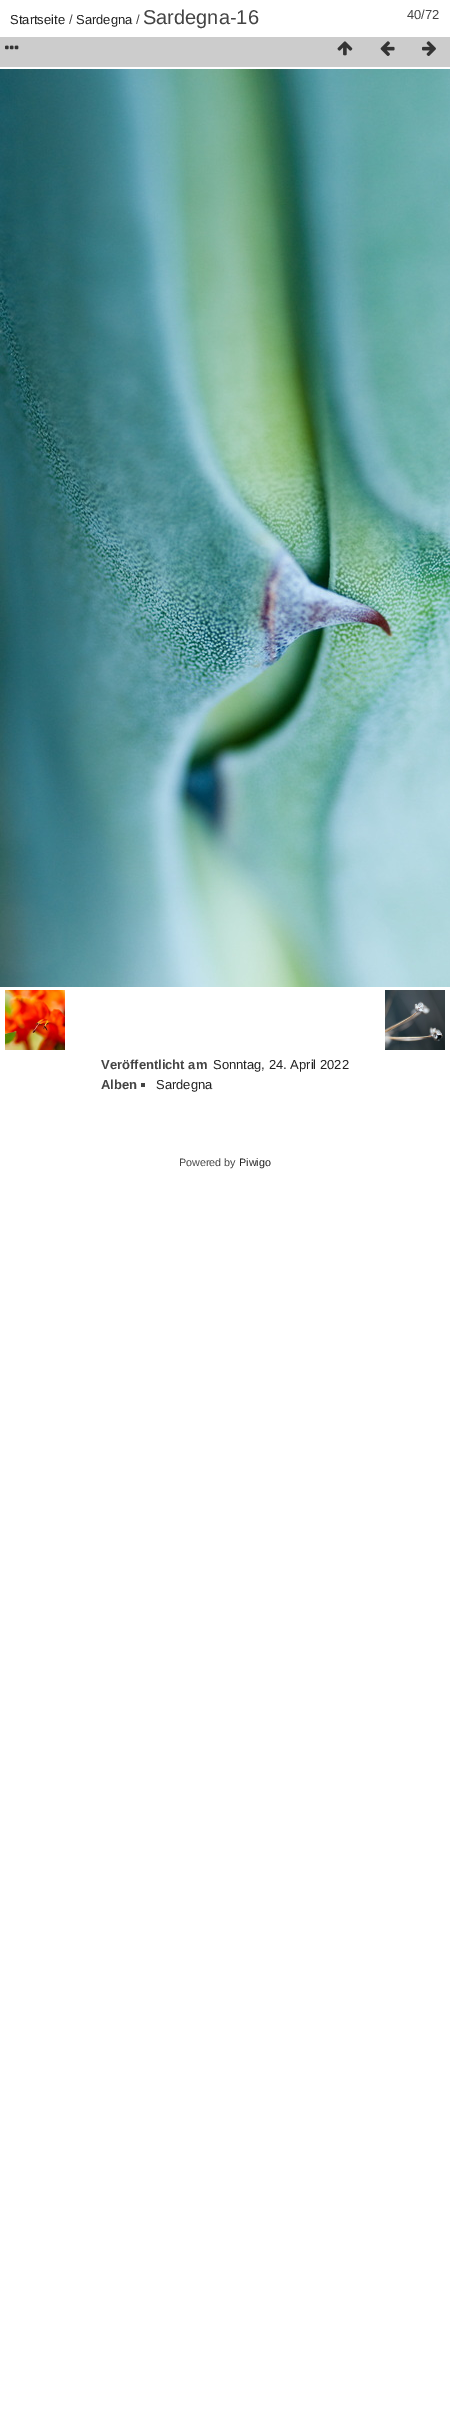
%!PS-Adobe-3.0
%%BoundingBox: 0 0 450 2421
%%LanguageLevel: 3
%%Pages: 1
%%EndComments
%%BeginProlog
/fn { [ exch dup neg 0 0 3 -1 roll 0 0 ] selectfont } def
/tx { moveto show } def
/bx { rectfill } def
/im { 5 dict begin { /h /w /y /x /name } { exch def } forall
  gsave x y translate w h scale
  w h 8 [w 0 0 h 0 0] name (r) file false 3 colorimage grestore end } def
%%EndProlog
%%BeginSetup
<< /PageSize [450 2421] >> setpagedevice
%%EndSetup
%%Page: 1 1
0 2421 translate 1 -1 scale
4 setmiterlimit
1 setgray
0 0 450 2421 bx
/LiberationSans-Regular 13 fn
0.133 setgray
(Startseite) 10 24 tx
0.267 setgray
(/) 69 24 tx
0.133 setgray
(Sardegna) 76 24 tx
0.267 setgray
(/) 136 24 tx
/LiberationSans-Regular 20 fn
(Sardegna-16) 143 24 tx
/LiberationSans-Regular 13 fn
(40/72) 407 19 tx
0.8 setgray
0 37 450 30 bx
(image0.raw) 5 45 14 5 im
(image1.raw) 337 41 16 15 im
(image2.raw) 380 41 15 15 im
(image3.raw) 422 41 14 15 im
(image4.raw) 0 69 450 918 im
(image5.raw) 5 990 60 60 im
(image6.raw) 385 990 60 60 im
/LiberationSans-Bold 13 fn
0.267 setgray
(Veröffentlicht am) 101 1069 tx
/LiberationSans-Regular 13 fn
0.133 setgray
(Sonntag, 24. April 2022) 213 1069 tx
/LiberationSans-Bold 13 fn
0.267 setgray
(Alben) 101 1089 tx
141 1083 4 4 bx
/LiberationSans-Regular 13 fn
0.133 setgray
(Sardegna) 156 1089 tx
/LiberationSans-Regular 10.75 fn
0.267 setgray
(Powered by) 179 1166 tx
0.133 setgray
(Piwigo) 239 1166 tx
showpage
%%EOF
